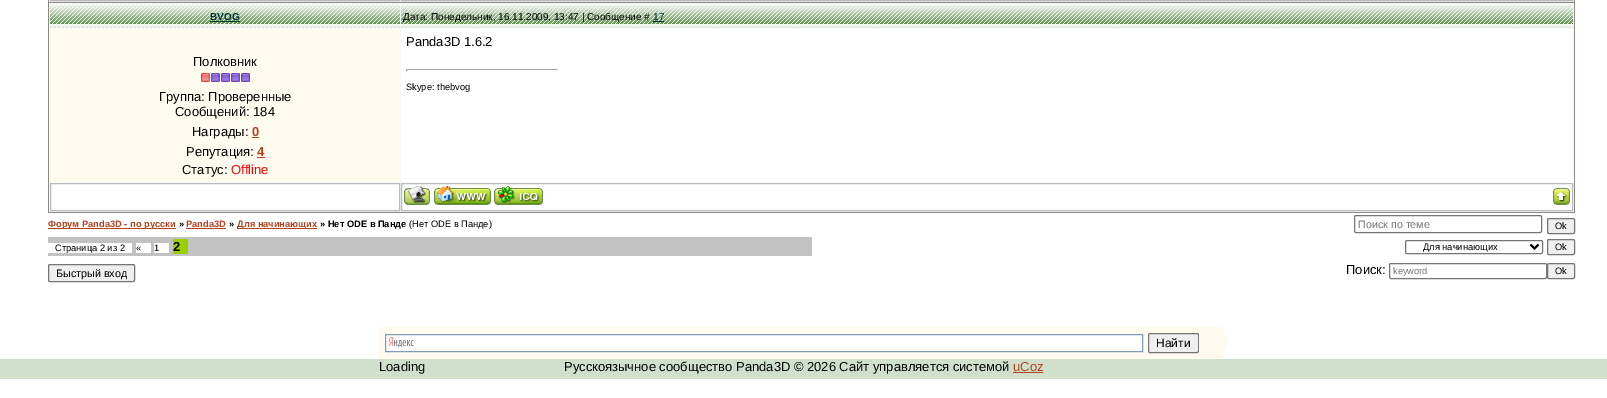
%!PS-Adobe-3.0
%%BoundingBox: 0 0 1607 398
%%LanguageLevel: 3
%%Pages: 1
%%EndComments
%%BeginProlog
/m { moveto } bind def
/l { lineto } bind def
/h { closepath } bind def
/f { fill } bind def
/S { stroke } bind def
/q { gsave } bind def
/Q { grestore } bind def
/w { setlinewidth } bind def
/fn { [ exch dup neg 0 0 3 -1 roll 0 0 ] selectfont } def
/tx { moveto show } def
/bx { rectfill } def
/rr { 5 dict begin { /r /h /w /y /x } { exch def } forall
  x r add y moveto x w add y 2 copy h add r arct x w add y h add x 1 index r arct
  x y h add x y r arct x y 2 copy exch w add exch r arct closepath end } def
/im { 5 dict begin { /h /w /y /x /name } { exch def } forall
  gsave x y translate w h scale
  w h 8 [w 0 0 h 0 0] name (r) file false 3 colorimage grestore end } def
%%EndProlog
%%BeginSetup
<< /PageSize [1607 398] >> setpagedevice
%%EndSetup
%%Page: 1 1
0 398 translate 1 -1 scale
4 setmiterlimit
1 setgray
0 0 1607 398 bx
0.549 0.541 0.51 setrgbcolor
48 0 1527 213 bx
0.933 setgray
49 0 1525 2 bx
0.733 setgray
50.5 -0.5 349 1 rectstroke
401.5 -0.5 1171 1 rectstroke
0.961 0.976 0.992 setrgbcolor
49 3 1525 209 bx
(image0.raw) 50 4 350 24 im
/LiberationSans-Bold 10 fn
0 0.2 0.2 setrgbcolor
(BVOG) 210 20 tx
210 21 30 1 bx
(image1.raw) 401 4 1172 24 im
/LiberationSans-Regular 10 fn
0 setgray
(Дата: Понедельник, 16.11.2009, 13:47 | Сообщение #) 403 20 tx
0 0.2 0.2 setrgbcolor
(17) 653 20 tx
653 21 11 1 bx
1 0.984 0.933 setrgbcolor
50 29 350 153 bx
/LiberationSans-Regular 13 fn
0 setgray
(Полковник) 193 66 tx
(image2.raw) 201 73 49 9 im
(Группа: Проверенные) 159 101 tx
(Сообщений: 184) 175 116 tx
(Награды:) 192 136 tx
/LiberationSans-Bold 13 fn
0.702 0.259 0.122 setrgbcolor
(0) 252 136 tx
252 137 7 1 bx
/LiberationSans-Regular 13 fn
0 setgray
(Репутация:) 186 156 tx
/LiberationSans-Bold 13 fn
0.702 0.259 0.122 setrgbcolor
(4) 257 156 tx
257 157 8 1 bx
/LiberationSans-Regular 13 fn
0 setgray
(Статус:) 182 174 tx
1 0 0 setrgbcolor
(Offline) 231 174 tx
1 setgray
401 29 1172 153 bx
0 setgray
(Panda3D 1.6.2) 406 46 tx
0.624 setgray
406 69 152 1 bx
0.933 setgray
557 69 1 2 bx
0.624 setgray
406 69 1 2 bx
/LiberationSans-Regular 9.3 fn
0 setgray
(Skype: thebvog) 406 90 tx
1 setgray
50.5 183.5 m 399.5 183.5 l 399.5 210.5 l 50.5 210.5 l h q f Q
0.733 setgray
S
1 setgray
401.5 183.5 m 1572.5 183.5 l 1572.5 210.5 l 401.5 210.5 l h q f Q
0.733 setgray
S
(image3.raw) 404 186 26 19 im
(image4.raw) 434 186 57 19 im
(image5.raw) 494 186 49 19 im
(image6.raw) 1553 188 17 17 im
0.702 0.259 0.122 setrgbcolor
48 228 128 1 bx
/LiberationSans-Bold 9.3 fn
(Форум Panda3D - по русски) 48 227 tx
0 setgray
(») 179 227 tx
0.702 0.259 0.122 setrgbcolor
(Panda3D) 186 227 tx
186 228 40 1 bx
0 setgray
(») 229 227 tx
0.702 0.259 0.122 setrgbcolor
237 228 80 1 bx
(Для начинающих) 237 227 tx
0 setgray
(» Нет ODE в Панде) 320 227 tx
/LiberationSans-Regular 9.3 fn
(\(Нет ODE в Панде\)) 409 227 tx
0.463 setgray
1354.5 215.5 187 17 1.5 rr S
/LiberationSans-Regular 10.75 fn
0.459 setgray
(Поиск по теме) 1358 228 tx
0.937 setgray
1547.5 218.5 27 15 1.5 rr q f Q
0.463 setgray
S
/LiberationSans-Regular 9.3 fn
0 setgray
(Ok) 1555 229 tx
0.761 setgray
48 237 764 19 bx
1 setgray
48 243 84 10 bx
0 setgray
(Страница 2 из 2) 55 251 tx
1 setgray
136 243 15 10 bx
0 setgray
(«) 136 251 tx
1 setgray
154 243 15 10 bx
0 setgray
(1) 154 251 tx
0.612 0.812 0 setrgbcolor
173 239 15 15 bx
/LiberationSans-Bold 13 fn
0 setgray
(2) 173 251 tx
0.463 setgray
1405.5 240.5 137 13 1.5 rr S
0 setgray
2 w
1530.5 244.5 m 1534.5 248.5 l 1538.5 244.5 l S
/LiberationSans-Regular 9.3 fn
(Для начинающих) 1423 250 tx
0.937 setgray
1547.5 239.5 27 15 1.5 rr q f Q
0.463 setgray
1 w
S
0 setgray
(Ok) 1555 250 tx
0.937 setgray
48.5 264.5 86 17 1.5 rr q f Q
0.463 setgray
S
/LiberationSans-Regular 10.75 fn
0 setgray
(Быстрый вход) 56 277 tx
/LiberationSans-Regular 13 fn
(Поиск:) 1346 274 tx
0.463 setgray
1389.5 263.5 157 15 1.5 rr S
/LiberationSans-Regular 9.3 fn
0.459 setgray
(keyword) 1393 274 tx
0.937 setgray
1547.5 263.5 27 15 1.5 rr q f Q
0.463 setgray
S
0 setgray
(Ok) 1555 274 tx
1 0.984 0.933 setrgbcolor
379 327 820 32 bx
1 setgray
386 335 756 16 bx
(image7.raw) 388 337 26 11 im
0.498 0.616 0.725 setrgbcolor
385.5 334.5 757 17 rectstroke
0.937 setgray
1148.5 333.5 50 19 1.5 rr q f Q
0.463 setgray
S
/LiberationSans-Regular 12 fn
0 setgray
(Найти) 1156 347 tx
q
1199 327 30 32 rectclip
1 0.984 0.933 setrgbcolor
1199 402 m 1199 284 l 1229 343 l h f
Q
0.816 0.878 0.796 setrgbcolor
0 359 1607 20 bx
/LiberationSans-Regular 13 fn
0 setgray
(Loading) 379 371 tx
(Русскоязычное сообщество Panda3D © 2026 Сайт управляется системой) 564 371 tx
0.702 0.259 0.122 setrgbcolor
(uCoz) 1013 371 tx
1013 372 30 1 bx
showpage
%%EOF
